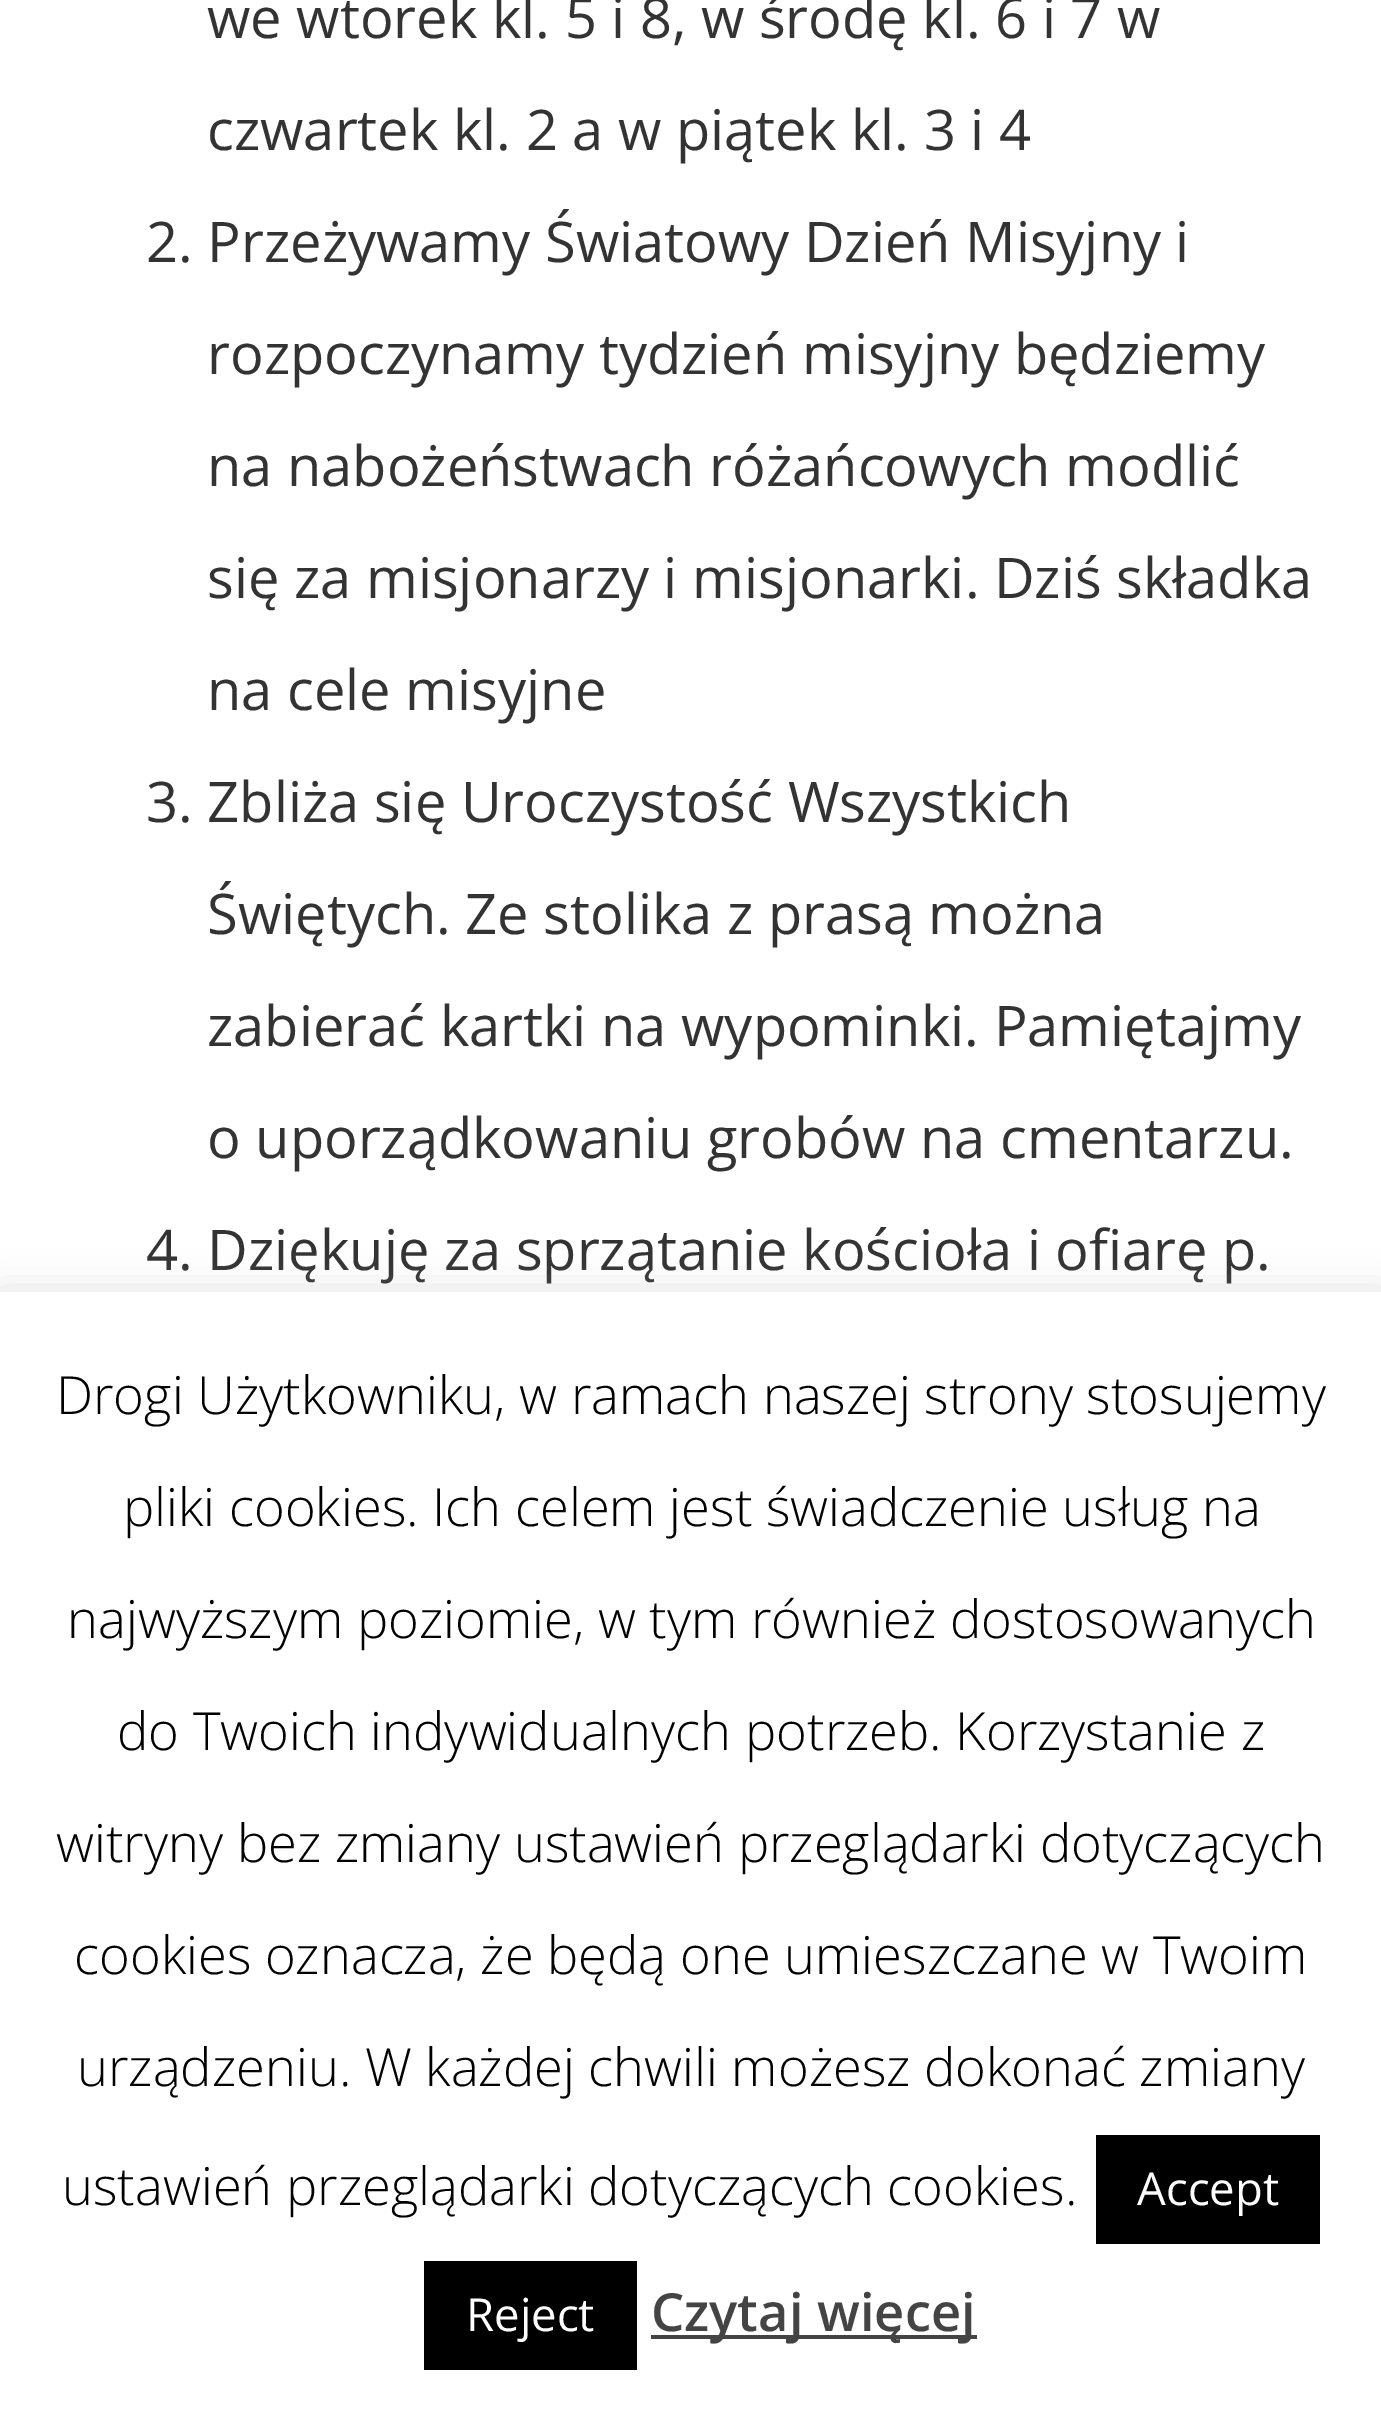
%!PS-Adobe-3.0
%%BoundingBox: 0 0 1381 2411
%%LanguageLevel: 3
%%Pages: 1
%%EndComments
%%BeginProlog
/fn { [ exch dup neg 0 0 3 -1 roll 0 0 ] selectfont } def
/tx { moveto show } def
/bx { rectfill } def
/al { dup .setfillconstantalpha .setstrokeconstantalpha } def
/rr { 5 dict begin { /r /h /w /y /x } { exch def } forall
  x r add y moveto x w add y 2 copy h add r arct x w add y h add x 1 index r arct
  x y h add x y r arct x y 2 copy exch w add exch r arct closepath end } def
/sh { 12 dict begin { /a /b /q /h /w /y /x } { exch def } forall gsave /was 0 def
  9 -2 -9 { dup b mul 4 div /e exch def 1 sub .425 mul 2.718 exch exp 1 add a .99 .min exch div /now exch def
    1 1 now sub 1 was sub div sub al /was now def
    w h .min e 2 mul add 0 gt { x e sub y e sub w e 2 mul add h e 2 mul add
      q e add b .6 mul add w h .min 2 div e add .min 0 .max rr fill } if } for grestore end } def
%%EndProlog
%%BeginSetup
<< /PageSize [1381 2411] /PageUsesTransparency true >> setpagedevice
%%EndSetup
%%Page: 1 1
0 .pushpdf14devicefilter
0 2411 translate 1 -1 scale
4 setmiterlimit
1 setgray
0 0 1381 2411 bx
/OpenSans-Regular 56 fn
0.2 setgray
(we wtorek kl. 5 i 8, w środę kl. 6 i 7 w) 207 38 tx
(czwartek kl. 2 a w piątek kl. 3 i 4) 207 150 tx
(2. Przeżywamy Światowy Dzień Misyjny i) 146 262 tx
(rozpoczynamy tydzień misyjny będziemy) 207 374 tx
(na nabożeństwach różańcowych modlić) 207 486 tx
(się za misjonarzy i misjonarki. Dziś składka) 207 598 tx
(na cele misyjne) 207 710 tx
(3. Zbliża się Uroczystość Wszystkich) 146 822 tx
(Świętych. Ze stolika z prasą można) 207 934 tx
(zabierać kartki na wypominki. Pamiętajmy) 207 1046 tx
(o uporządkowaniu grobów na cmentarzu.) 207 1158 tx
(4. Dziękuję za sprzątanie kościoła i ofiarę p.) 146 1270 tx
0.675 0.671 0.671 setrgbcolor
0 1288 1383 1120 0 17.5 0.3 sh
1 setgray
0 1292 1381 1119 bx
/OpenSans-Light 52.5 fn
0 setgray
(Drogi Użytkowniku, w ramach naszej strony stosujemy) 56 1414 tx
(pliki cookies. Ich celem jest świadczenie usług na) 123 1526 tx
(najwyższym poziomie, w tym również dostosowanych) 67 1638 tx
(do Twoich indywidualnych potrzeb. Korzystanie z) 117 1750 tx
(witryny bez zmiany ustawień przeglądarki dotyczących) 56 1862 tx
(cookies oznacza, że będą one umieszczane w Twoim) 74 1974 tx
(urządzeniu. W każdej chwili możesz dokonać zmiany) 77 2086 tx
(ustawień przeglądarki dotyczących cookies.) 62 2205 tx
1096 2135 224 109 bx
/OpenSans-Regular 45.5 fn
1 setgray
(Accept) 1137 2205 tx
0 setgray
424 2261 213 109 bx
1 setgray
(Reject) 466 2331 tx
0.267 setgray
651 2335 326 4 bx
/OpenSans-SemiBold 52.5 fn
(Czytaj więcej) 651 2331 tx
.poppdf14devicefilter showpage
%%EOF
